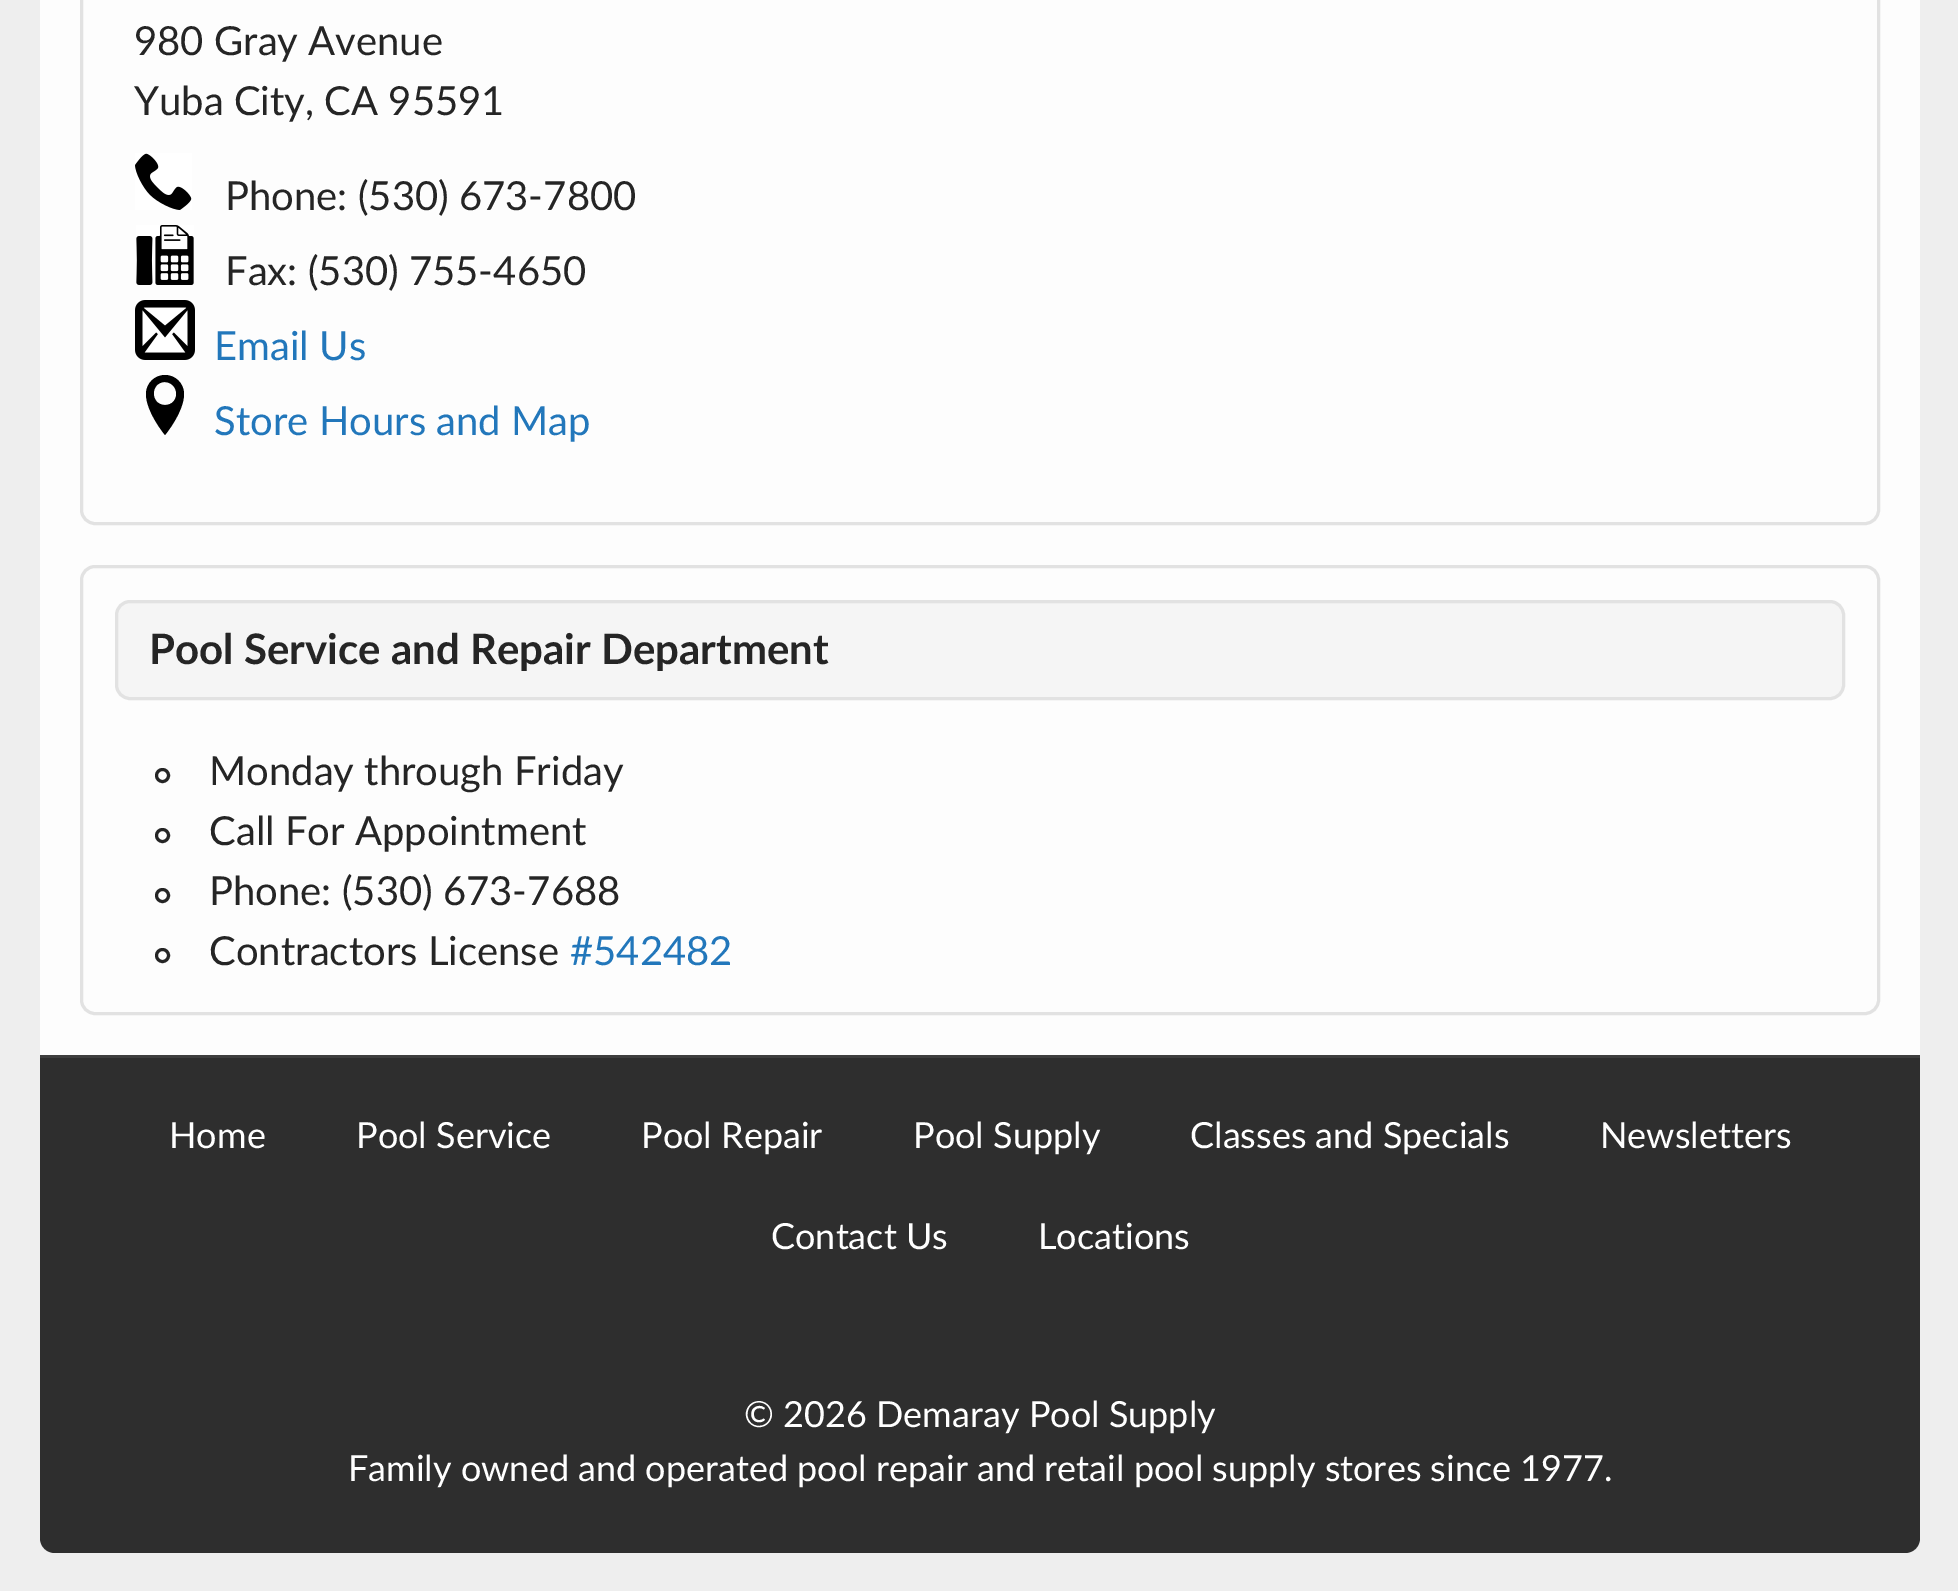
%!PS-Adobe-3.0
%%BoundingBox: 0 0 1958 1591
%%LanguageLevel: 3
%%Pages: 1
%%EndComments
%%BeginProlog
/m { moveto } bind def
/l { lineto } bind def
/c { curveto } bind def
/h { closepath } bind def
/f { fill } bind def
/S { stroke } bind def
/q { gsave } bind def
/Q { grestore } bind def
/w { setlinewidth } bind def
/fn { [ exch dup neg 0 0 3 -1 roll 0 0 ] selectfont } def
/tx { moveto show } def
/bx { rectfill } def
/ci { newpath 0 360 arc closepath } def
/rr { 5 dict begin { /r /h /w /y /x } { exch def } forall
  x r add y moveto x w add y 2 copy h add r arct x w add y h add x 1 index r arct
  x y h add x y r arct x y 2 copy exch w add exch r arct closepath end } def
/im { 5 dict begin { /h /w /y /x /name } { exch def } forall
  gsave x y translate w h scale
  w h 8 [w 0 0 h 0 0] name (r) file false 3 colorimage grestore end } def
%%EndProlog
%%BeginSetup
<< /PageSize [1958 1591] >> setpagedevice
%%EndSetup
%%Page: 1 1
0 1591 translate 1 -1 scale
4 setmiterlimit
0.933 setgray
0 0 1958 1591 bx
0.992 setgray
40 0 1880 1055 bx
0.886 setgray
3 w
81.5 -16.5 1797 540 13.5 rr S
/Lato-Regular 40 fn
0.145 setgray
(980 Gray Avenue) 134 55 tx
(Yuba City, CA 95591) 134 115 tx
(image0.raw) 135 153 57 57 im
(Phone: \(530\) 673-7800) 225 210 tx
(image1.raw) 136 225 58 60 im
(Fax: \(530\) 755-4650) 225 285 tx
(image2.raw) 135 300 60 60 im
0.133 0.467 0.733 setrgbcolor
(Email Us) 214 360 tx
0 setgray
165 375 m 155 375 146 383 146 394 c 146 412 165 435 165 435 c 165 435 184 412 184 394 c 184 383 175 375 165 375 c h 165 405 m 150 405 150 382 165 382 c 180 383 180 405 165 405 c h f
0.133 0.467 0.733 setrgbcolor
(Store Hours and Map) 214 435 tx
0.886 setgray
81.5 566.5 1797 447 13.5 rr S
0.961 setgray
116.5 601.5 1727 97 13.5 rr q f Q
0.886 setgray
S
/Lato-Bold 42 fn
0.145 setgray
(Pool Service and Repair Department) 149 664 tx
162.5 775.5 6 ci S
/Lato-Regular 40 fn
(Monday through Friday) 209 785 tx
162.5 835.5 6 ci S
(Call For Appointment) 209 845 tx
162.5 895.5 6 ci S
(Phone: \(530\) 673-7688) 209 905 tx
162.5 955.5 6 ci S
(Contractors License) 209 965 tx
0.133 0.467 0.733 setrgbcolor
(#542482) 570 965 tx
0.18 setgray
40 1055 m 1920 1055 l 1920 1538 l 1920 1546.5 1913.5 1553 1905 1553 c 55 1553 l 46.5 1553 40 1546.5 40 1538 c h f
0.243 setgray
40 1055 1880 3 bx
/Lato-Regular 36 fn
1 setgray
(Home) 169 1148 tx
(Pool Service) 356 1148 tx
(Pool Repair) 641 1148 tx
(Pool Supply) 913 1148 tx
(Classes and Specials) 1190 1148 tx
(Newsletters) 1600 1148 tx
(Contact Us) 771 1249 tx
(Locations) 1038 1249 tx
(© 2026 Demaray Pool Supply) 744 1427 tx
(Family owned and operated pool repair and retail pool supply stores since 1977.) 348 1481 tx
showpage
%%EOF
